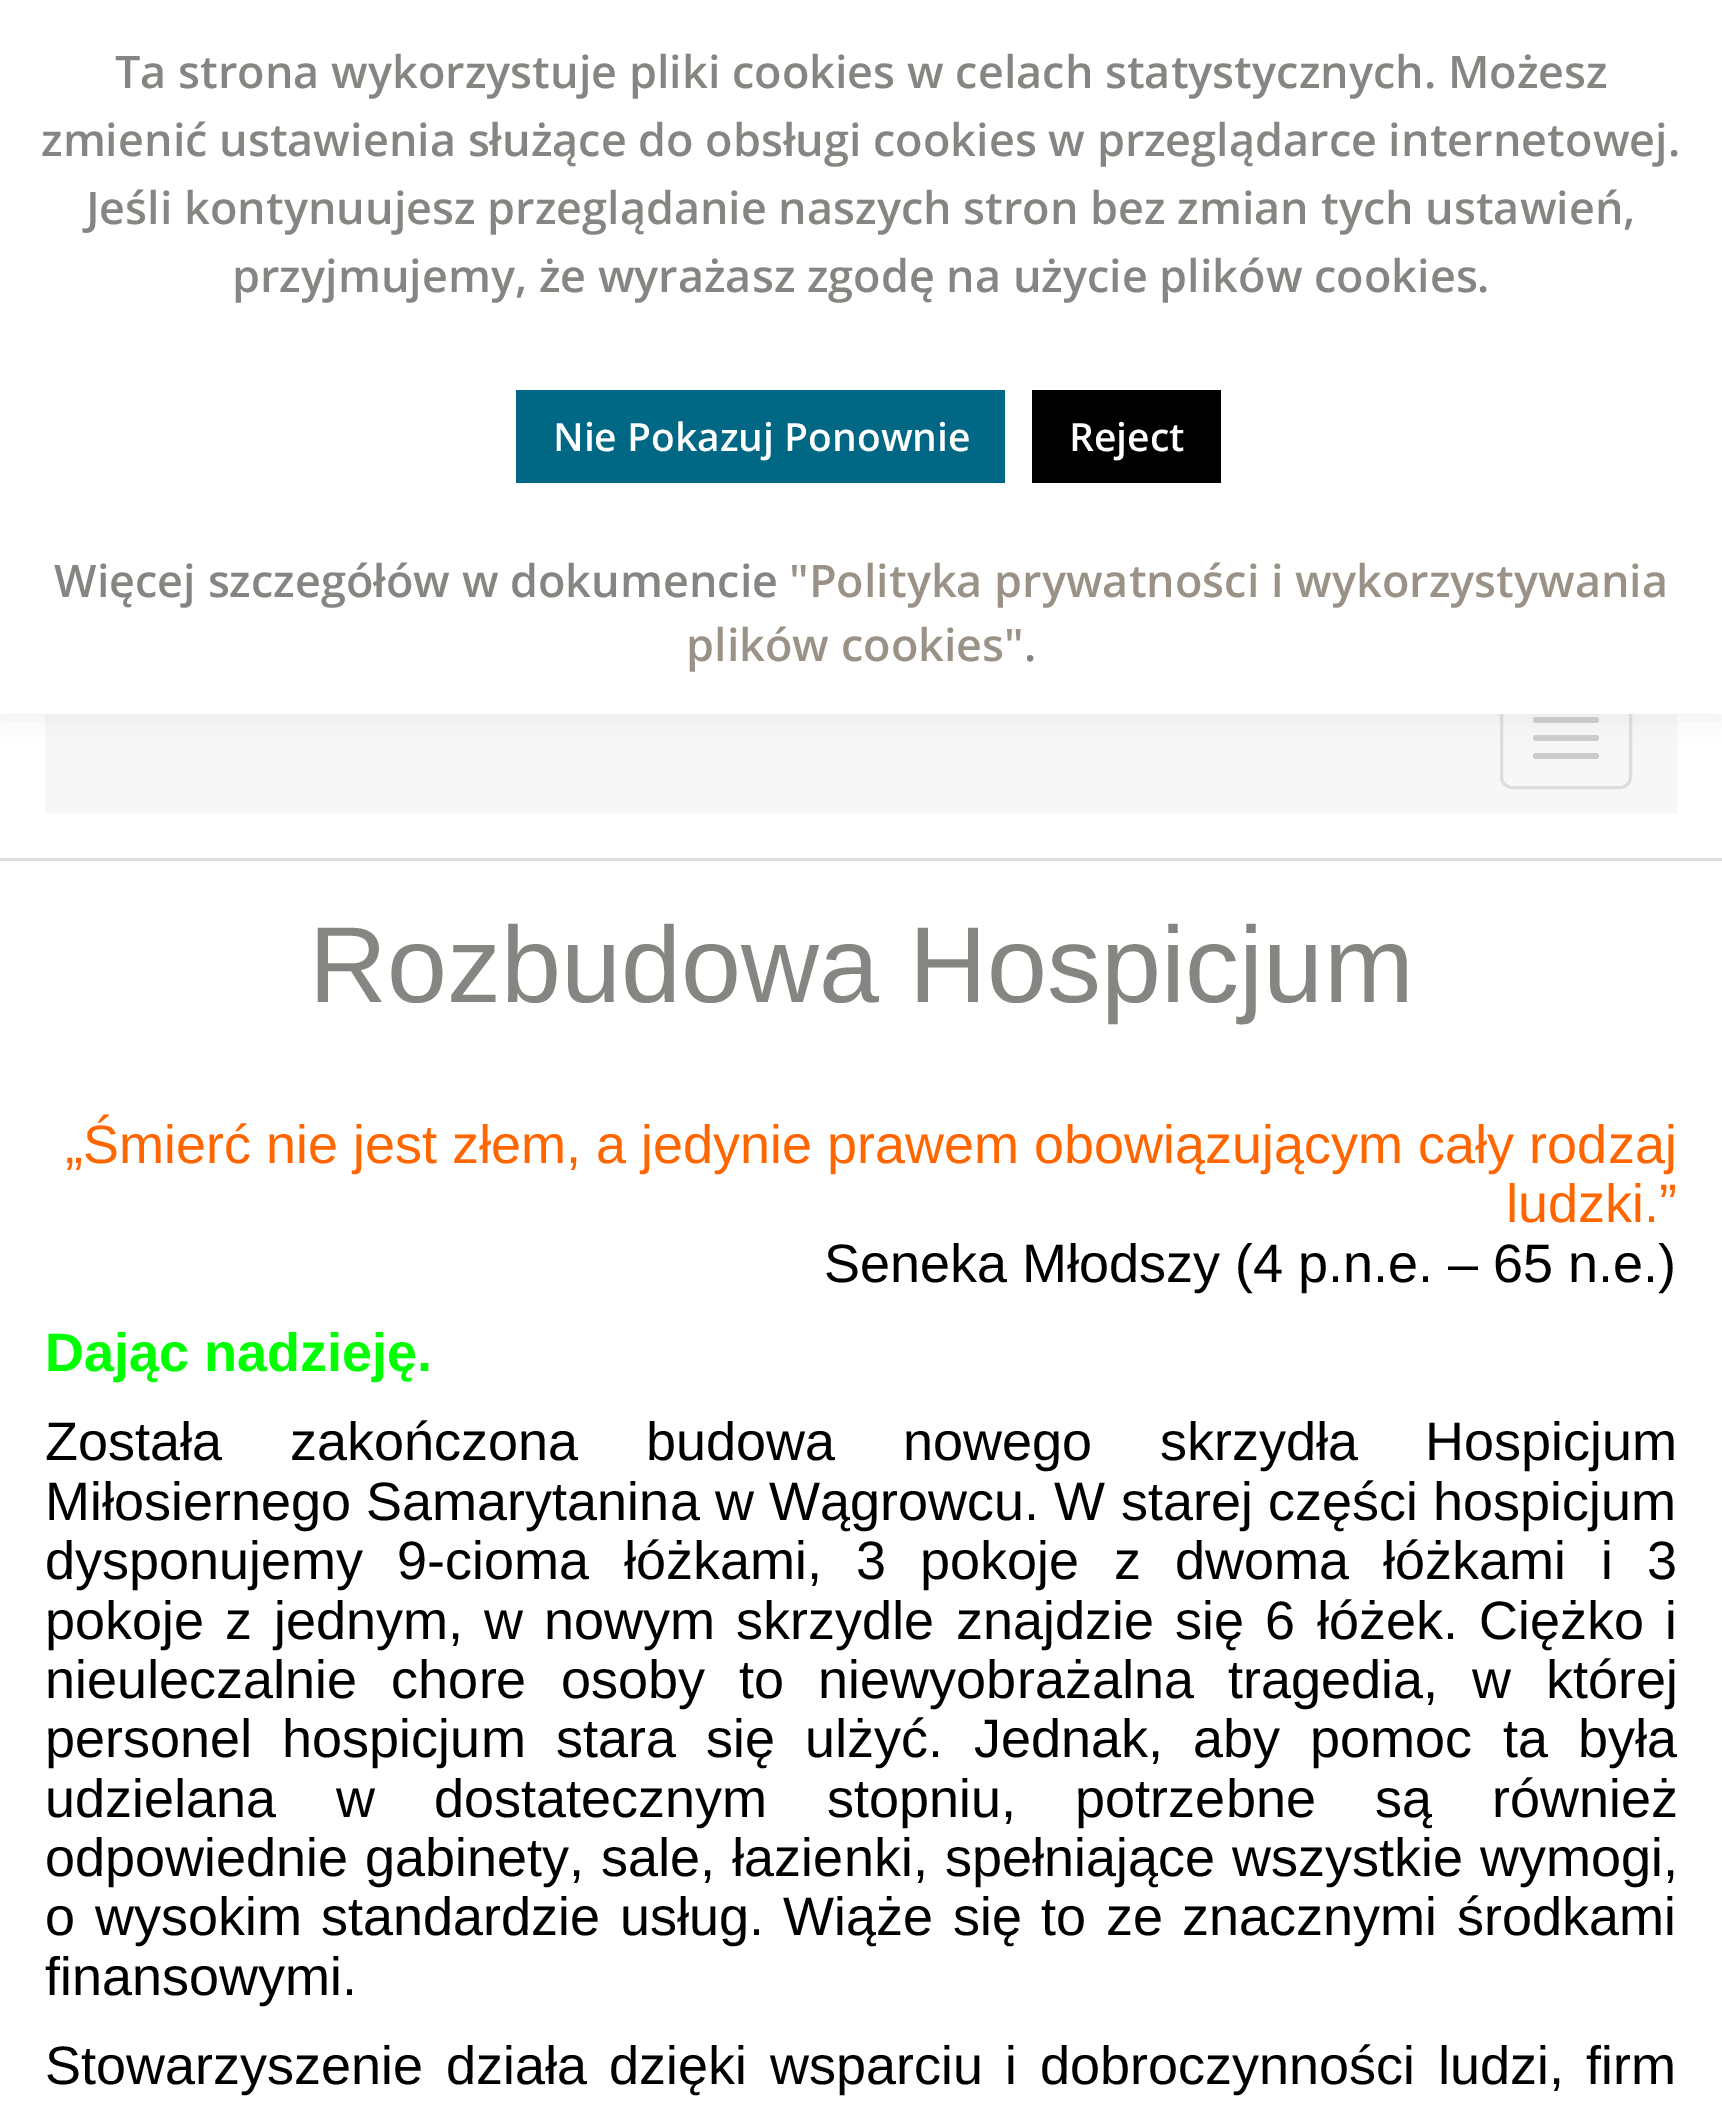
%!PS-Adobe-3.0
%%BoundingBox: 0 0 1722 2113
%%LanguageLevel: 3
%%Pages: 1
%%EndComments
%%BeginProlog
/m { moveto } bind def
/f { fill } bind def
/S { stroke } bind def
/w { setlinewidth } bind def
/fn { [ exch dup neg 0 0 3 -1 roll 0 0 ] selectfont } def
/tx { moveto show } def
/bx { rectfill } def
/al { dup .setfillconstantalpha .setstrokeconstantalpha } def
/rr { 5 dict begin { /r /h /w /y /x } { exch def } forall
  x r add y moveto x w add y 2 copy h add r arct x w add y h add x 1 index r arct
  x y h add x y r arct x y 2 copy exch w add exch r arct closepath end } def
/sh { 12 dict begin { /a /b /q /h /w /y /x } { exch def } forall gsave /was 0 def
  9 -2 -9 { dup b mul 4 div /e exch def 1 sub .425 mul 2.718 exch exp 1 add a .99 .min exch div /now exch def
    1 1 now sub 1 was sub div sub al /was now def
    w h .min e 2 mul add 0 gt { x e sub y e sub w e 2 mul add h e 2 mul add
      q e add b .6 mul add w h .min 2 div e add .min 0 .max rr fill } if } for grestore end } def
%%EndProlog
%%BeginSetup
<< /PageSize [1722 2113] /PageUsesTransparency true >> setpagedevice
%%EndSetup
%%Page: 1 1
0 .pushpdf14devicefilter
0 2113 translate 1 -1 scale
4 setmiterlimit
1 setgray
0 0 1722 2113 bx
0.969 setgray
45 714 1632 99 bx
0.867 setgray
3 w
1501.5 688.5 129 99 10.5 rr S
0.8 setgray
1533 717 66 6 3 rr f
1533 735 66 6 3 rr f
1533 753 66 6 3 rr f
0.675 0.671 0.671 setrgbcolor
0 -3 1722 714 0 15 0.3 sh
1 setgray
0 0 1722 714 bx
/OpenSans-SemiBold 45 fn
0.525 0.522 0.51 setrgbcolor
(Ta strona wykorzystuje pliki cookies w celach statystycznych. Możesz) 115 88 tx
(zmienić ustawienia służące do obsługi cookies w przeglądarce internetowej.) 41 156 tx
(Jeśli kontynuujesz przeglądanie naszych stron bez zmian tych ustawień,) 86 224 tx
(przyjmujemy, że wyrażasz zgodę na użycie plików cookies.) 232 292 tx
0 0.404 0.518 setrgbcolor
516 390 489 93 bx
/OpenSans-SemiBold 39 fn
1 setgray
(Nie Pokazuj Ponownie) 553 451 tx
0 setgray
1032 390 189 93 bx
1 setgray
(Reject) 1069 451 tx
/OpenSans-SemiBold 45 fn
0.525 0.522 0.51 setrgbcolor
(Więcej szczegółów w dokumencie) 54 597 tx
0.604 0.573 0.529 setrgbcolor
("Polityka prywatności i wykorzystywania) 789 597 tx
(plików cookies") 686 661 tx
0.525 0.522 0.51 setrgbcolor
(.) 1024 661 tx
0.867 setgray
0 858 1722 3 bx
/LiberationSans-Regular 108 fn
0.525 0.522 0.51 setrgbcolor
(Rozbudowa Hospicjum) 309 1002 tx
/LiberationSans-Regular 54 fn
1 0.4 0 setrgbcolor
(„Śmierć nie jest złem, a jedynie prawem obowiązującym cały rodzaj) 65 1163 tx
(ludzki.”) 1506 1222 tx
0 setgray
(Seneka Młodszy \(4 p.n.e. – 65 n.e.\)) 824 1282 tx
/LiberationSans-Bold 54 fn
0 1 0 setrgbcolor
(Dając nadzieję.) 45 1371 tx
/LiberationSans-Regular 54 fn
0 setgray
45 1460 m 52.75 0 32 (Została zakończona budowa nowego skrzydła Hospicjum) widthshow
45 1520 m 0.25 0 32 (Miłosiernego Samarytanina w Wągrowcu. W starej części hospicjum) widthshow
45 1579 m 19.25 0 32 (dysponujemy 9-cioma łóżkami, 3 pokoje z dwoma łóżkami i 3) widthshow
45 1639 m 6.25 0 32 (pokoje z jednym, w nowym skrzydle znajdzie się 6 łóżek. Ciężko i) widthshow
45 1698 m 19.25 0 32 (nieuleczalnie chore osoby to niewyobrażalna tragedia, w której) widthshow
45 1757 m 15.25 0 32 (personel hospicjum stara się ulżyć. Jednak, aby pomoc ta była) widthshow
45 1817 m 44.5 0 32 (udzielana w dostatecznym stopniu, potrzebne są również) widthshow
45 1876 m 2 0 32 (odpowiednie gabinety, sale, łazienki, spełniające wszystkie wymogi,) widthshow
45 1935 m 4.5 0 32 (o wysokim standardzie usług. Wiąże się to ze znacznymi środkami) widthshow
(finansowymi.) 45 1995 tx
45 2084 m 7.5 0 32 (Stowarzyszenie działa dzięki wsparciu i dobroczynności ludzi, firm) widthshow
.poppdf14devicefilter showpage
%%EOF
